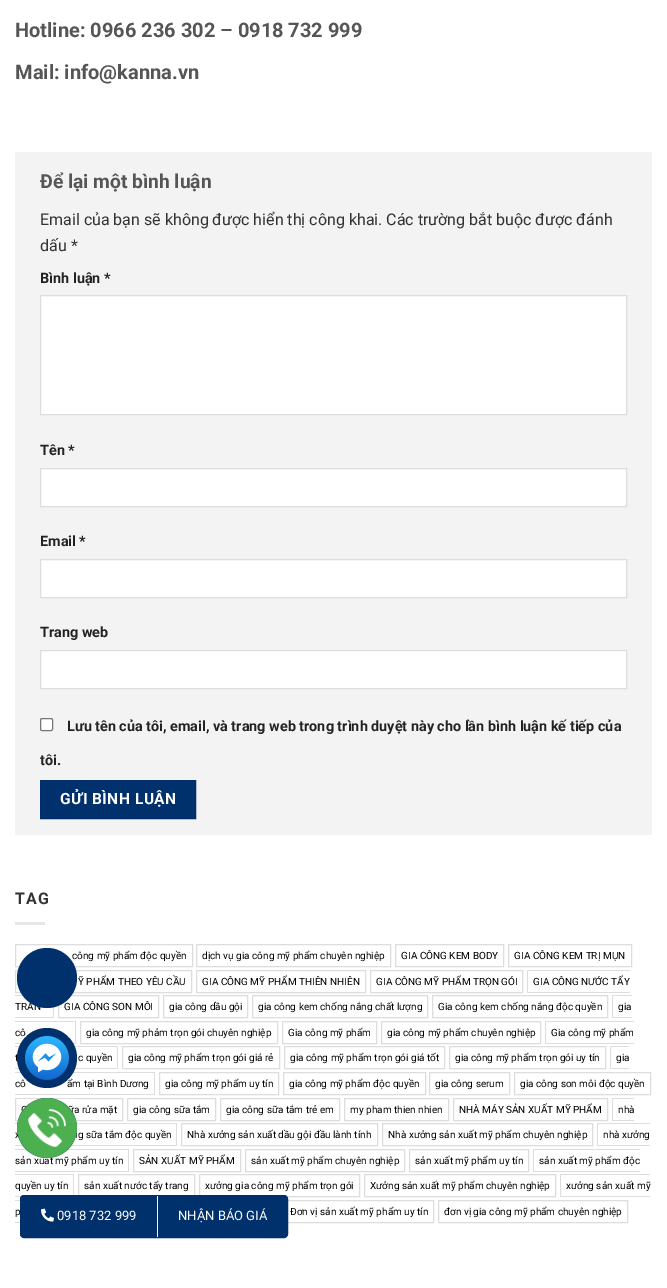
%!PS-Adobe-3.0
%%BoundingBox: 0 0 667 1288
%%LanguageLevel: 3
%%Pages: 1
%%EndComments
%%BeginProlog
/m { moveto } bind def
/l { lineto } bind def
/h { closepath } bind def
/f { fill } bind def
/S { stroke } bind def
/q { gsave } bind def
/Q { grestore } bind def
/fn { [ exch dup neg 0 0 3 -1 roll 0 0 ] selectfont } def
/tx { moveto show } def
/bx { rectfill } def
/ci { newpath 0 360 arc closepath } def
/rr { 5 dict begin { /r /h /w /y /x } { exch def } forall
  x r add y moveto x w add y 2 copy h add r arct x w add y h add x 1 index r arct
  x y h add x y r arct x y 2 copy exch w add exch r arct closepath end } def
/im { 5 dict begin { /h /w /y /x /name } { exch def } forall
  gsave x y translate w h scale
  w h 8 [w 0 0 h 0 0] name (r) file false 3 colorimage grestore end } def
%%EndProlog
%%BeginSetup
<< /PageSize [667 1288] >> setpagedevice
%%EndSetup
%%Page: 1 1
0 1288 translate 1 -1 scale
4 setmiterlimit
1 setgray
0 0 667 1288 bx
/Roboto-Bold 20 fn
0.333 setgray
(Hotline: 0966 236 302 – 0918 732 999) 15 37 tx
(Mail: info@kanna.vn) 15 79 tx
0.953 setgray
15 152 637 683 bx
/Roboto-Bold 19.25 fn
0.333 setgray
(Để lại một bình luận) 40 188 tx
/Roboto-Regular 16 fn
0.2 setgray
(Email của bạn sẽ không được hiển thị công khai. Các trường bắt buộc được đánh) 40 225 tx
(dấu *) 40 251 tx
/Roboto-Bold 14.4 fn
0.133 setgray
(Bình luận *) 40 283 tx
1 setgray
40.5 295.5 m 626.5 295.5 l 626.5 414.5 l 40.5 414.5 l h q f Q
0.867 setgray
S
0.133 setgray
(Tên *) 40 455 tx
1 setgray
40.5 468.5 m 626.5 468.5 l 626.5 506.5 l 40.5 506.5 l h q f Q
0.867 setgray
S
0.133 setgray
(Email *) 40 546 tx
1 setgray
40.5 559.5 m 626.5 559.5 l 626.5 597.5 l 40.5 597.5 l h q f Q
0.867 setgray
S
0.133 setgray
(Trang web) 40 637 tx
1 setgray
40.5 650.5 m 626.5 650.5 l 626.5 688.5 l 40.5 688.5 l h q f Q
0.867 setgray
S
1 setgray
40.5 718.5 12 12 1.5 rr q f Q
0.463 setgray
S
0.133 setgray
(Lưu tên của tôi, email, và trang web trong trình duyệt này cho lần bình luận kế tiếp của) 67 731 tx
(tôi.) 40 765 tx
0 0.192 0.424 setrgbcolor
40.5 780.5 m 195.5 780.5 l 195.5 818.5 l 40.5 818.5 l h q f Q
0 0.184 0.404 setrgbcolor
S
/Roboto-Bold 15.5 fn
1 setgray
60 804 m 0.5 0 (GỬI BÌNH LUẬN) ashow
/Roboto-Bold 16 fn
0.2 setgray
15 904 m 1 0 (TAG) ashow
0.902 setgray
15 922 30 3 bx
0.867 setgray
15.5 944.5 177 22 rectstroke
/Roboto-Regular 10 fn
0 setgray
(công mỹ phẩm độc quyền) 72 959 tx
0.867 setgray
196.5 944.5 194 22 rectstroke
0 setgray
(dịch vụ gia công mỹ phẩm chuyên nghiệp) 202 959 tx
0.867 setgray
395.5 944.5 108 22 rectstroke
0 setgray
(GIA CÔNG KEM BODY) 401 959 tx
0.867 setgray
508.5 944.5 123 22 rectstroke
0 setgray
(GIA CÔNG KEM TRỊ MỤN) 514 959 tx
0.867 setgray
15.5 970.5 176 22 rectstroke
0 setgray
(Ỹ PHẨM THEO YÊU CẦU) 78 985 tx
0.867 setgray
196.5 970.5 169 22 rectstroke
0 setgray
(GIA CÔNG MỸ PHẨM THIÊN NHIÊN) 202 985 tx
0.867 setgray
370.5 970.5 152 22 rectstroke
0 setgray
(GIA CÔNG MỸ PHẨM TRỌN GÓI) 376 985 tx
(GIA CÔNG NƯỚC TẨY) 533 985 tx
0.867 setgray
527 970 103 1 bx
527 992 103 1 bx
527 970 1 23 bx
0 setgray
(TRAN) 15 1010 tx
0.867 setgray
15 995 8 1 bx
53 1007 1 11 bx
15 1017 39 1 bx
58.5 995.5 100 22 rectstroke
0 setgray
(GIA CÔNG SON MÔI) 64 1010 tx
0.867 setgray
163.5 995.5 84 22 rectstroke
0 setgray
(gia công dầu gội) 169 1010 tx
0.867 setgray
252.5 995.5 175 22 rectstroke
0 setgray
(gia công kem chống nắng chất lượng) 258 1010 tx
0.867 setgray
432.5 995.5 175 22 rectstroke
0 setgray
(Gia công kem chống nắng độc quyền) 438 1010 tx
(gia) 618 1010 tx
0.867 setgray
612 995 20 1 bx
612 1017 20 1 bx
612 995 1 23 bx
0 setgray
(cô) 15 1036 tx
0.867 setgray
15 1021 61 1 bx
75 1021 1 23 bx
15 1043 61 1 bx
80.5 1021.5 197 22 rectstroke
0 setgray
(gia công mỹ phảm trọn gói chuyên nghiệp) 86 1036 tx
0.867 setgray
282.5 1021.5 94 22 rectstroke
0 setgray
(Gia công mỹ phẩm) 288 1036 tx
0.867 setgray
381.5 1021.5 159 22 rectstroke
0 setgray
(gia công mỹ phẩm chuyên nghiệp) 387 1036 tx
(Gia công mỹ phẩm) 551 1036 tx
0.867 setgray
545 1021 89 1 bx
545 1043 89 1 bx
545 1021 1 23 bx
0 setgray
(t) 15 1061 tx
0.867 setgray
15 1046 103 1 bx
117 1046 1 23 bx
15 1068 103 1 bx
0 setgray
(c quyền) 78 1061 tx
0.867 setgray
122.5 1046.5 157 22 rectstroke
0 setgray
(gia công mỹ phẩm trọn gói giá rẻ) 128 1061 tx
0.867 setgray
284.5 1046.5 160 22 rectstroke
0 setgray
(gia công mỹ phẩm trọn gói giá tốt) 290 1061 tx
0.867 setgray
449.5 1046.5 156 22 rectstroke
0 setgray
(gia công mỹ phẩm trọn gói uy tín) 455 1061 tx
(gia) 616 1061 tx
0.867 setgray
610 1046 19 1 bx
610 1068 19 1 bx
610 1046 1 23 bx
0 setgray
(cô) 15 1087 tx
0.867 setgray
15 1072 140 1 bx
0 setgray
(ẩm tại Bình Dương) 67 1087 tx
0.867 setgray
154 1072 1 23 bx
15 1094 140 1 bx
159.5 1072.5 119 22 rectstroke
0 setgray
(gia công mỹ phẩm uy tín) 165 1087 tx
0.867 setgray
283.5 1072.5 142 22 rectstroke
0 setgray
(gia công mỹ phẩm độc quyền) 289 1087 tx
0.867 setgray
429.5 1072.5 80 22 rectstroke
0 setgray
(gia công serum) 435 1087 tx
0.867 setgray
514.5 1072.5 136 22 rectstroke
0 setgray
(gia công son môi độc quyền) 520 1087 tx
0.867 setgray
15.5 1098.5 107 22 rectstroke
0 setgray
(ữa rửa mặt) 68 1113 tx
0.867 setgray
127.5 1098.5 88 22 rectstroke
0 setgray
(gia công sữa tắm) 133 1113 tx
0.867 setgray
220.5 1098.5 119 22 rectstroke
0 setgray
(gia công sữa tắm trẻ em) 226 1113 tx
0.867 setgray
344.5 1098.5 104 22 rectstroke
0 setgray
(my pham thien nhien) 350 1113 tx
0.867 setgray
453.5 1098.5 154 22 rectstroke
0 setgray
(NHÀ MÁY SẢN XUẤT MỸ PHẨM) 459 1113 tx
(nhà) 618 1113 tx
0.867 setgray
612 1098 22 1 bx
612 1120 22 1 bx
612 1098 1 23 bx
0 setgray
(x) 15 1138 tx
0.867 setgray
15 1123 162 1 bx
176 1123 1 23 bx
15 1145 162 1 bx
0 setgray
(g sữa tắm độc quyền) 78 1138 tx
0.867 setgray
181.5 1123.5 196 22 rectstroke
0 setgray
(Nhà xưởng sản xuất dầu gội đầu lành tính) 187 1138 tx
0.867 setgray
382.5 1123.5 210 22 rectstroke
0 setgray
(Nhà xưởng sản xuất mỹ phẩm chuyên nghiệp) 388 1138 tx
(nhà xưởng) 603 1138 tx
0.867 setgray
597 1123 53 1 bx
597 1145 53 1 bx
597 1123 1 23 bx
0 setgray
(sản xuất mỹ phẩm uy tín) 15 1164 tx
0.867 setgray
15 1149 114 1 bx
128 1149 1 23 bx
15 1171 114 1 bx
133.5 1149.5 107 22 rectstroke
0 setgray
(SẢN XUẤT MỸ PHẨM) 139 1164 tx
0.867 setgray
245.5 1149.5 159 22 rectstroke
0 setgray
(sản xuất mỹ phẩm chuyên nghiệp) 251 1164 tx
0.867 setgray
409.5 1149.5 119 22 rectstroke
0 setgray
(sản xuất mỹ phẩm uy tín) 415 1164 tx
(sản xuất mỹ phẩm độc) 539 1164 tx
0.867 setgray
533 1149 107 1 bx
533 1171 107 1 bx
533 1149 1 23 bx
0 setgray
(quyền uy tín) 15 1189 tx
0.867 setgray
15 1174 59 1 bx
73 1174 1 23 bx
15 1196 7 1 bx
78.5 1174.5 116 22 rectstroke
0 setgray
(sản xuất nước tẩy trang) 84 1189 tx
0.867 setgray
199.5 1174.5 160 22 rectstroke
0 setgray
(xưởng gia công mỹ phẩm trọn gói) 205 1189 tx
0.867 setgray
364.5 1174.5 191 22 rectstroke
0 setgray
(Xưởng sản xuất mỹ phẩm chuyên nghiệp) 370 1189 tx
(xưởng sản xuất mỹ) 566 1189 tx
0.867 setgray
560 1174 90 1 bx
560 1196 90 1 bx
560 1174 1 23 bx
0 setgray
(p) 15 1215 tx
0.867 setgray
15 1200 5 1 bx
15 1222 5 1 bx
284.5 1200.5 149 22 rectstroke
0 setgray
(Đơn vị sản xuất mỹ phẩm uy tín) 290 1215 tx
0.867 setgray
438.5 1200.5 189 22 rectstroke
0 setgray
(đơn vị gia công mỹ phẩm chuyên nghiệp) 444 1215 tx
0 0.192 0.424 setrgbcolor
47 978 30 ci f
47 1058 30 ci f
(image0.raw) 25 1036 44 44 im
47 1128 30 ci f
(image1.raw) 17 1098 60 60 im
20.5 1195.5 267 42 3.5 rr q f Q
S
1 setgray
157 1196 1 41 bx
(image2.raw) 41 1208 13 14 im
/Roboto-Regular 13 fn
(0918 732 999) 57 1220 tx
(NHẬN BÁO GIÁ) 178 1220 tx
showpage
%%EOF
